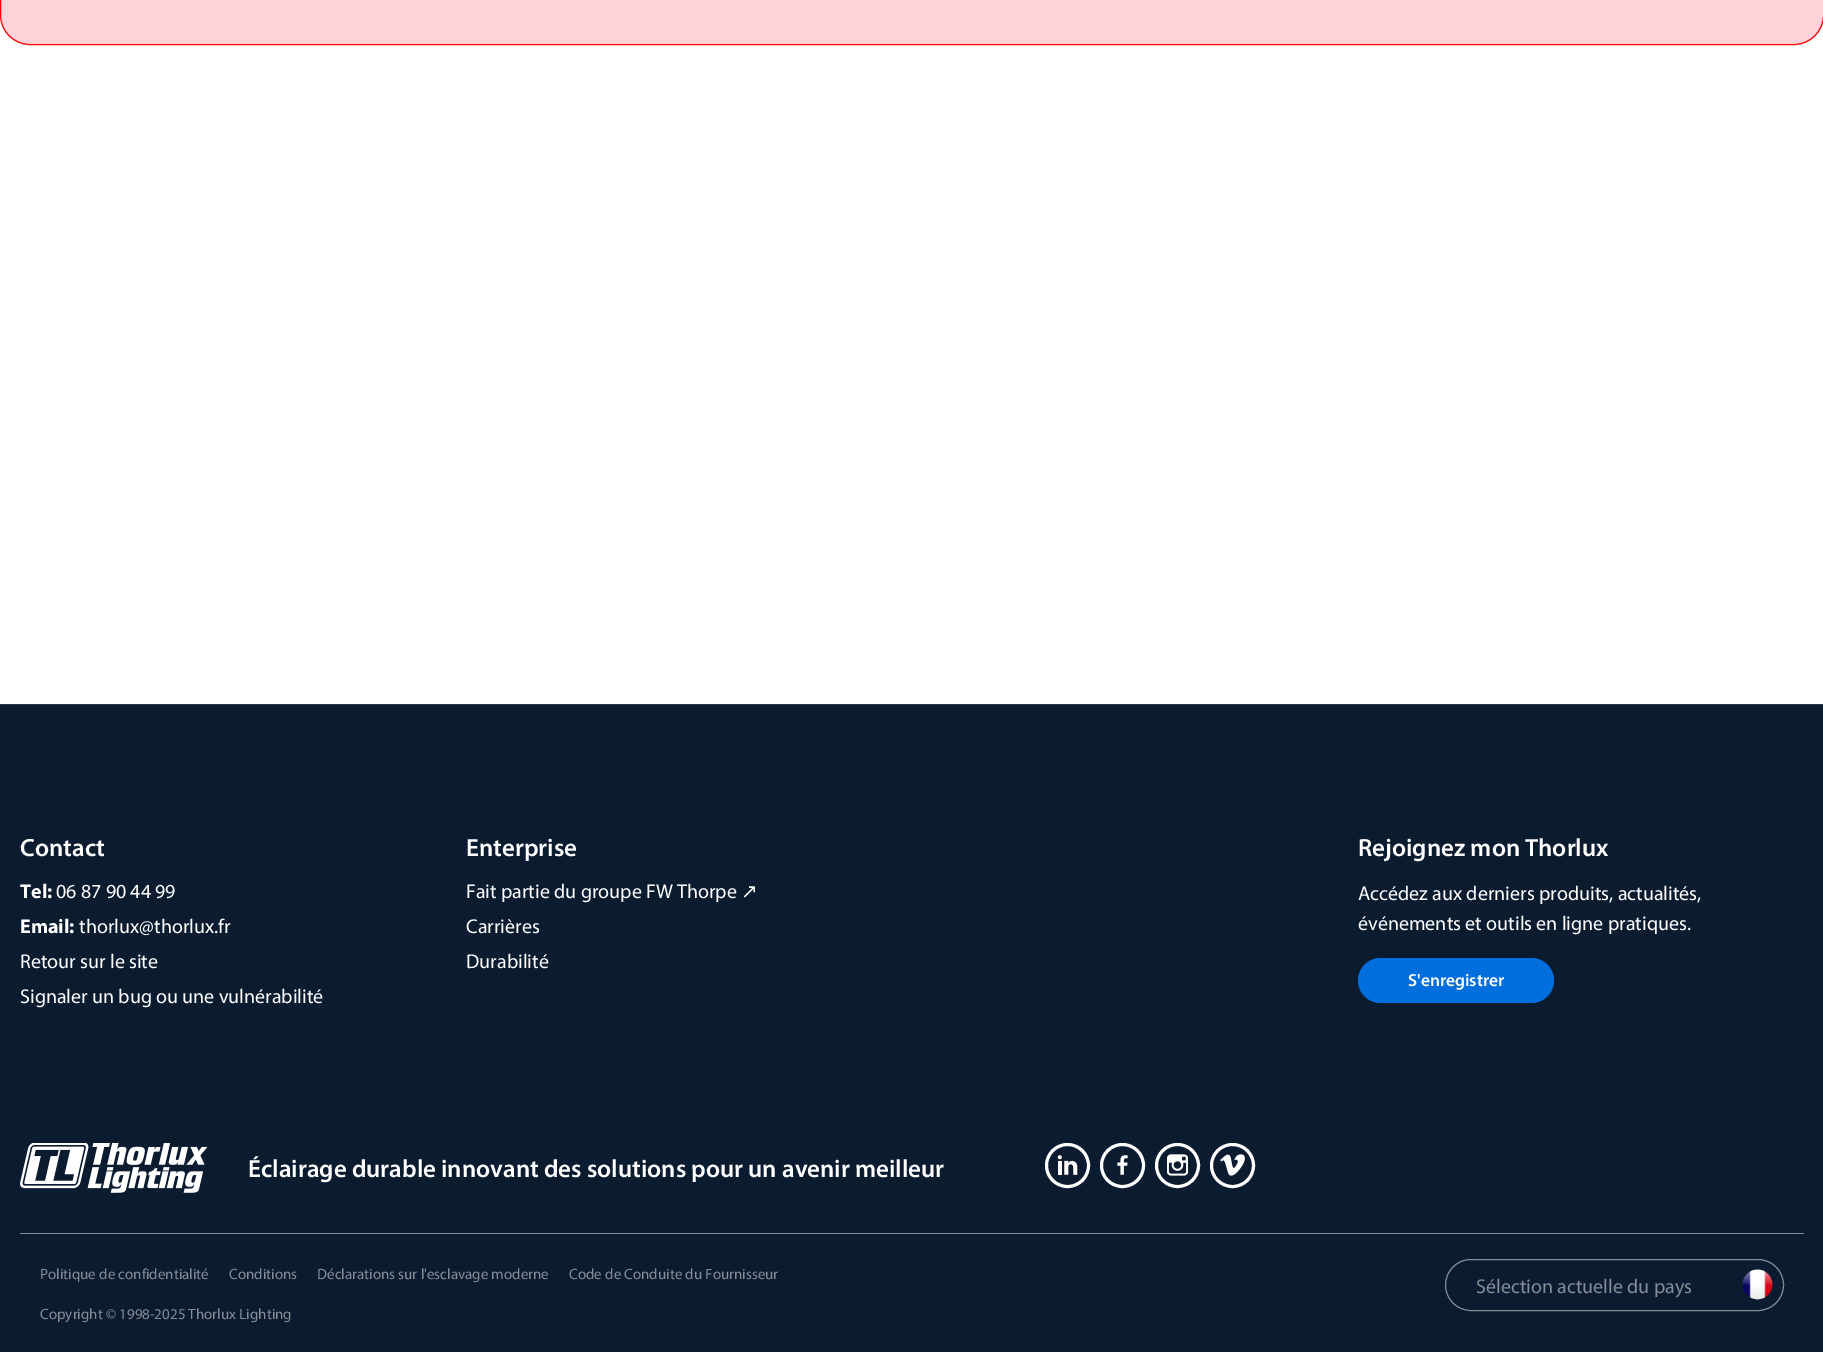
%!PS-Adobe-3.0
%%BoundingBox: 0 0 1823 1352
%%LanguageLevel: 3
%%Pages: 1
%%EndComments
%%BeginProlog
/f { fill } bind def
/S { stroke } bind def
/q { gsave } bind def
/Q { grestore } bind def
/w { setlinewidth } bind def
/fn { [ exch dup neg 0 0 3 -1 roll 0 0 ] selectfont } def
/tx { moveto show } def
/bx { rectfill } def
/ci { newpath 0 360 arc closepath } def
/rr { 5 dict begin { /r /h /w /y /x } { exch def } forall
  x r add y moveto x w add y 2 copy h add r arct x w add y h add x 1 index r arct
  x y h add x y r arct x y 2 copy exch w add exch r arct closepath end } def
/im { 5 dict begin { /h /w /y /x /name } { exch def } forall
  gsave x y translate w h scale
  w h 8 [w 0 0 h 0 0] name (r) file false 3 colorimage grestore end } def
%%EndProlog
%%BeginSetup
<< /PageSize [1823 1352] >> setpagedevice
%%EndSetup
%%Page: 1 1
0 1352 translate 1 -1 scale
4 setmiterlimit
1 setgray
0 0 1823 1352 bx
1 0.824 0.851 setrgbcolor
0.5 -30.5 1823 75 29.5 rr q f Q
1 0 0 setrgbcolor
S
0.043 0.106 0.188 setrgbcolor
0 705 1823 647 bx
0.125 0.212 0.286 setrgbcolor
0 704 1823 1 bx
/Myriad-SemiBold 25 fn
1 setgray
(Contact) 20 856 tx
/Myriad-Bold 20 fn
(Tel:) 20 898 tx
/Myriad-Regular 20 fn
(06 87 90 44 99) 56 898 tx
/Myriad-Bold 20 fn
(Email:) 20 933 tx
/Myriad-Regular 20 fn
(thorlux@thorlux.fr) 79 933 tx
(Retour sur le site) 20 968 tx
(Signaler un bug ou une vulnérabilité) 20 1003 tx
/Myriad-SemiBold 25 fn
(Enterprise) 466 856 tx
/Myriad-Regular 20 fn
(Fait partie du groupe FW Thorpe) 466 898 tx
/DejaVuSans-Regular 20 fn
(↗) 741 898 tx
/Myriad-Regular 20 fn
(Carrières) 466 933 tx
(Durabilité) 466 968 tx
/Myriad-SemiBold 25 fn
(Rejoignez mon Thorlux) 1358 856 tx
/Myriad-Regular 20 fn
(Accédez aux derniers produits, actualités,) 1358 900 tx
(événements et outils en ligne pratiques.) 1358 930 tx
0 0.431 0.863 setrgbcolor
1358 958 196 45 22.5 rr f
/Myriad-SemiBold 17.5 fn
1 setgray
(S'enregistrer) 1408 986 tx
(image0.raw) 20 1143 188 50 im
/Myriad-SemiBold 25 fn
(Éclairage durable innovant des solutions pour un avenir meilleur) 248 1177 tx
3 w
1067.5 1165.5 21 ci S
(image1.raw) 1057 1155 21 20 im
1122.5 1165.5 21 ci S
(image2.raw) 1117 1155 11 20 im
1177.5 1165.5 21 ci S
(image3.raw) 1167 1154 21 22 im
1232.5 1165.5 21 ci S
(image4.raw) 1220 1154 25 22 im
0.522 0.553 0.592 setrgbcolor
20 1233 1784 1 bx
/Myriad-Regular 15 fn
(Politique de confidentialité) 40 1279 tx
0.043 0.106 0.188 setrgbcolor
211 1273 3 ci f
0.522 0.553 0.592 setrgbcolor
(Conditions) 229 1279 tx
0.043 0.106 0.188 setrgbcolor
296 1270 7 6 3 rr f
0.522 0.553 0.592 setrgbcolor
(Déclarations sur l'esclavage moderne) 317 1279 tx
0.043 0.106 0.188 setrgbcolor
551 1273 3 ci f
0.522 0.553 0.592 setrgbcolor
(Code de Conduite du Fournisseur) 569 1279 tx
(Copyright © 1998-2025 Thorlux Lighting) 40 1319 tx
1 w
1445.5 1259.5 338 51 25.5 rr S
/Myriad-Regular 20 fn
(Sélection actuelle du pays) 1476 1293 tx
(image5.raw) 1742 1269 31 31 im
showpage
%%EOF
